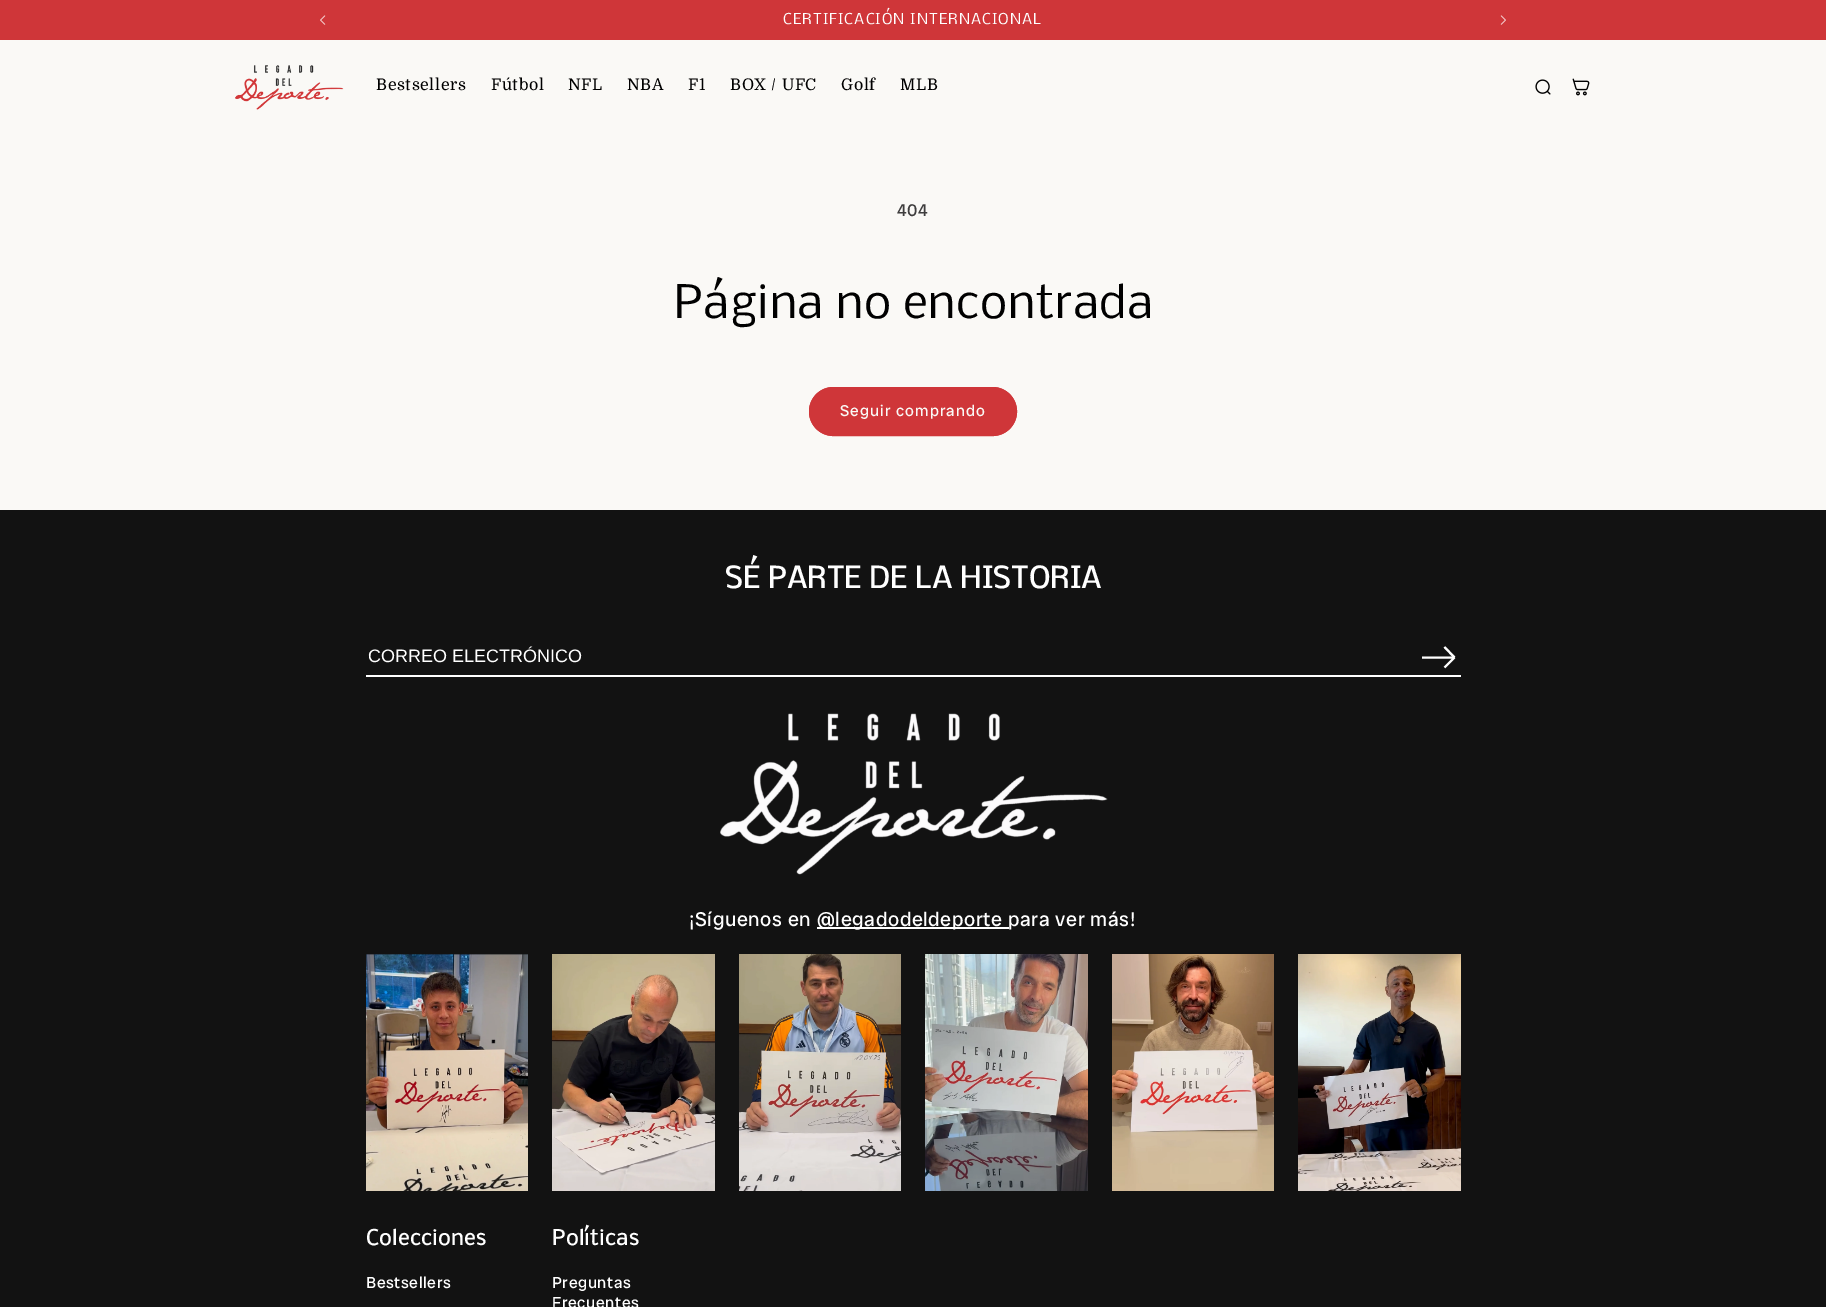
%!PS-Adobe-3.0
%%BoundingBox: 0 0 1826 1307
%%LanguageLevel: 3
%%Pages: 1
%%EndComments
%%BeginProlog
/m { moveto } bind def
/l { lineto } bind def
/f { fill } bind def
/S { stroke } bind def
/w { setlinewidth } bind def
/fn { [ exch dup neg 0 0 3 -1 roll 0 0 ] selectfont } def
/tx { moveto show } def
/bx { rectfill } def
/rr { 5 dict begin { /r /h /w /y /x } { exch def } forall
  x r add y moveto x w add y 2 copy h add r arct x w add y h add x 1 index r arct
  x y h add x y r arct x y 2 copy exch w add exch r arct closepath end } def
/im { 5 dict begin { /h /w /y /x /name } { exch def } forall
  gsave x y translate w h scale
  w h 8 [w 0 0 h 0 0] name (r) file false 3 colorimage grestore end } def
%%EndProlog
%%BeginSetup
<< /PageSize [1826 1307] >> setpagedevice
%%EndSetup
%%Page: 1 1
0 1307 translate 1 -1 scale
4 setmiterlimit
0.98 0.976 0.965 setrgbcolor
0 0 1826 1307 bx
0.812 0.212 0.224 setrgbcolor
0 0 1826 40 bx
(image0.raw) 320 15 6 10 im
/Nobile-Regular 14.25 fn
1 setgray
783 24 m 1.05 0 (CERTIFICACIÓN INTERNACIONAL) ashow
(image1.raw) 1500 15 6 10 im
(image2.raw) 235 65 109 45 im
/Domine-Regular 16 fn
0 setgray
376 90 m 0.6 0 (Bestsellers) ashow
491 90 m 0.6 0 (Fútbol) ashow
568 90 m 0.6 0 (NFL) ashow
627 90 m 0.6 0 (NBA) ashow
688 90 m 0.6 0 (F1) ashow
730 90 m 0.6 0 (BOX / UFC) ashow
841 90 m 0.6 0 (Golf) ashow
900 90 m 0.6 0 (MLB) ashow
(image3.raw) 1535 79 16 16 im
(image4.raw) 1572 78 18 18 im
/RadioCanadaBig-Regular 17 fn
0.247 0.243 0.243 setrgbcolor
897 216 m 0.6 0 (404) ashow
/Nobile-Regular 44 fn
0 setgray
674 318 m 0.7 0 (Página no encontrada) ashow
0.812 0.212 0.224 setrgbcolor
809 387 208 49 24.5 rr f
809.5 387.5 207 48 24 rr S
/RadioCanadaBig-Regular 15.75 fn
0.98 0.976 0.965 setrgbcolor
840 416 m 1.05 0 (Seguir comprando) ashow
0.071 setgray
0 510 1826 797 bx
/Nobile-Bold 28 fn
1 setgray
725 588 m 0.7 0 (SÉ PARTE DE LA HISTORIA) ashow
366 675 1095 2 bx
/LiberationSans-Regular 18 fn
(CORREO ELECTRÓNICO) 368 662 tx
2.1 w
1444.5 667.5 m 1454.5 657.5 l 1454.5 657.5 m 1444.5 647 l 1454.5 657.5 m 1422 657.5 l S
(image5.raw) 720 713 388 162 im
/RadioCanadaBig-Regular 20 fn
689 926 m 0.6 0 (¡Síguenos en) ashow
817 927 192 2 bx
817 926 m 0.6 0 (@legadodeldeporte para ver más!) ashow
(image6.raw) 739 954 162 237 im
(image7.raw) 925 954 163 237 im
(image8.raw) 1112 954 162 237 im
(image9.raw) 1298 954 163 237 im
(image10.raw) 366 954 162 237 im
/Nobile-Bold 20 fn
366 1245 m 0.7 0 (Colecciones) ashow
/RadioCanadaBig-Regular 16 fn
366 1288 m 0.6 0 (Bestsellers) ashow
(image11.raw) 552 954 163 237 im
/Nobile-Bold 20 fn
552 1245 m 0.7 0 (Políticas) ashow
/RadioCanadaBig-Regular 16 fn
552 1288 m 0.6 0 (Preguntas) ashow
552 1308 m 0.6 0 (Frecuentes) ashow
showpage
%%EOF
